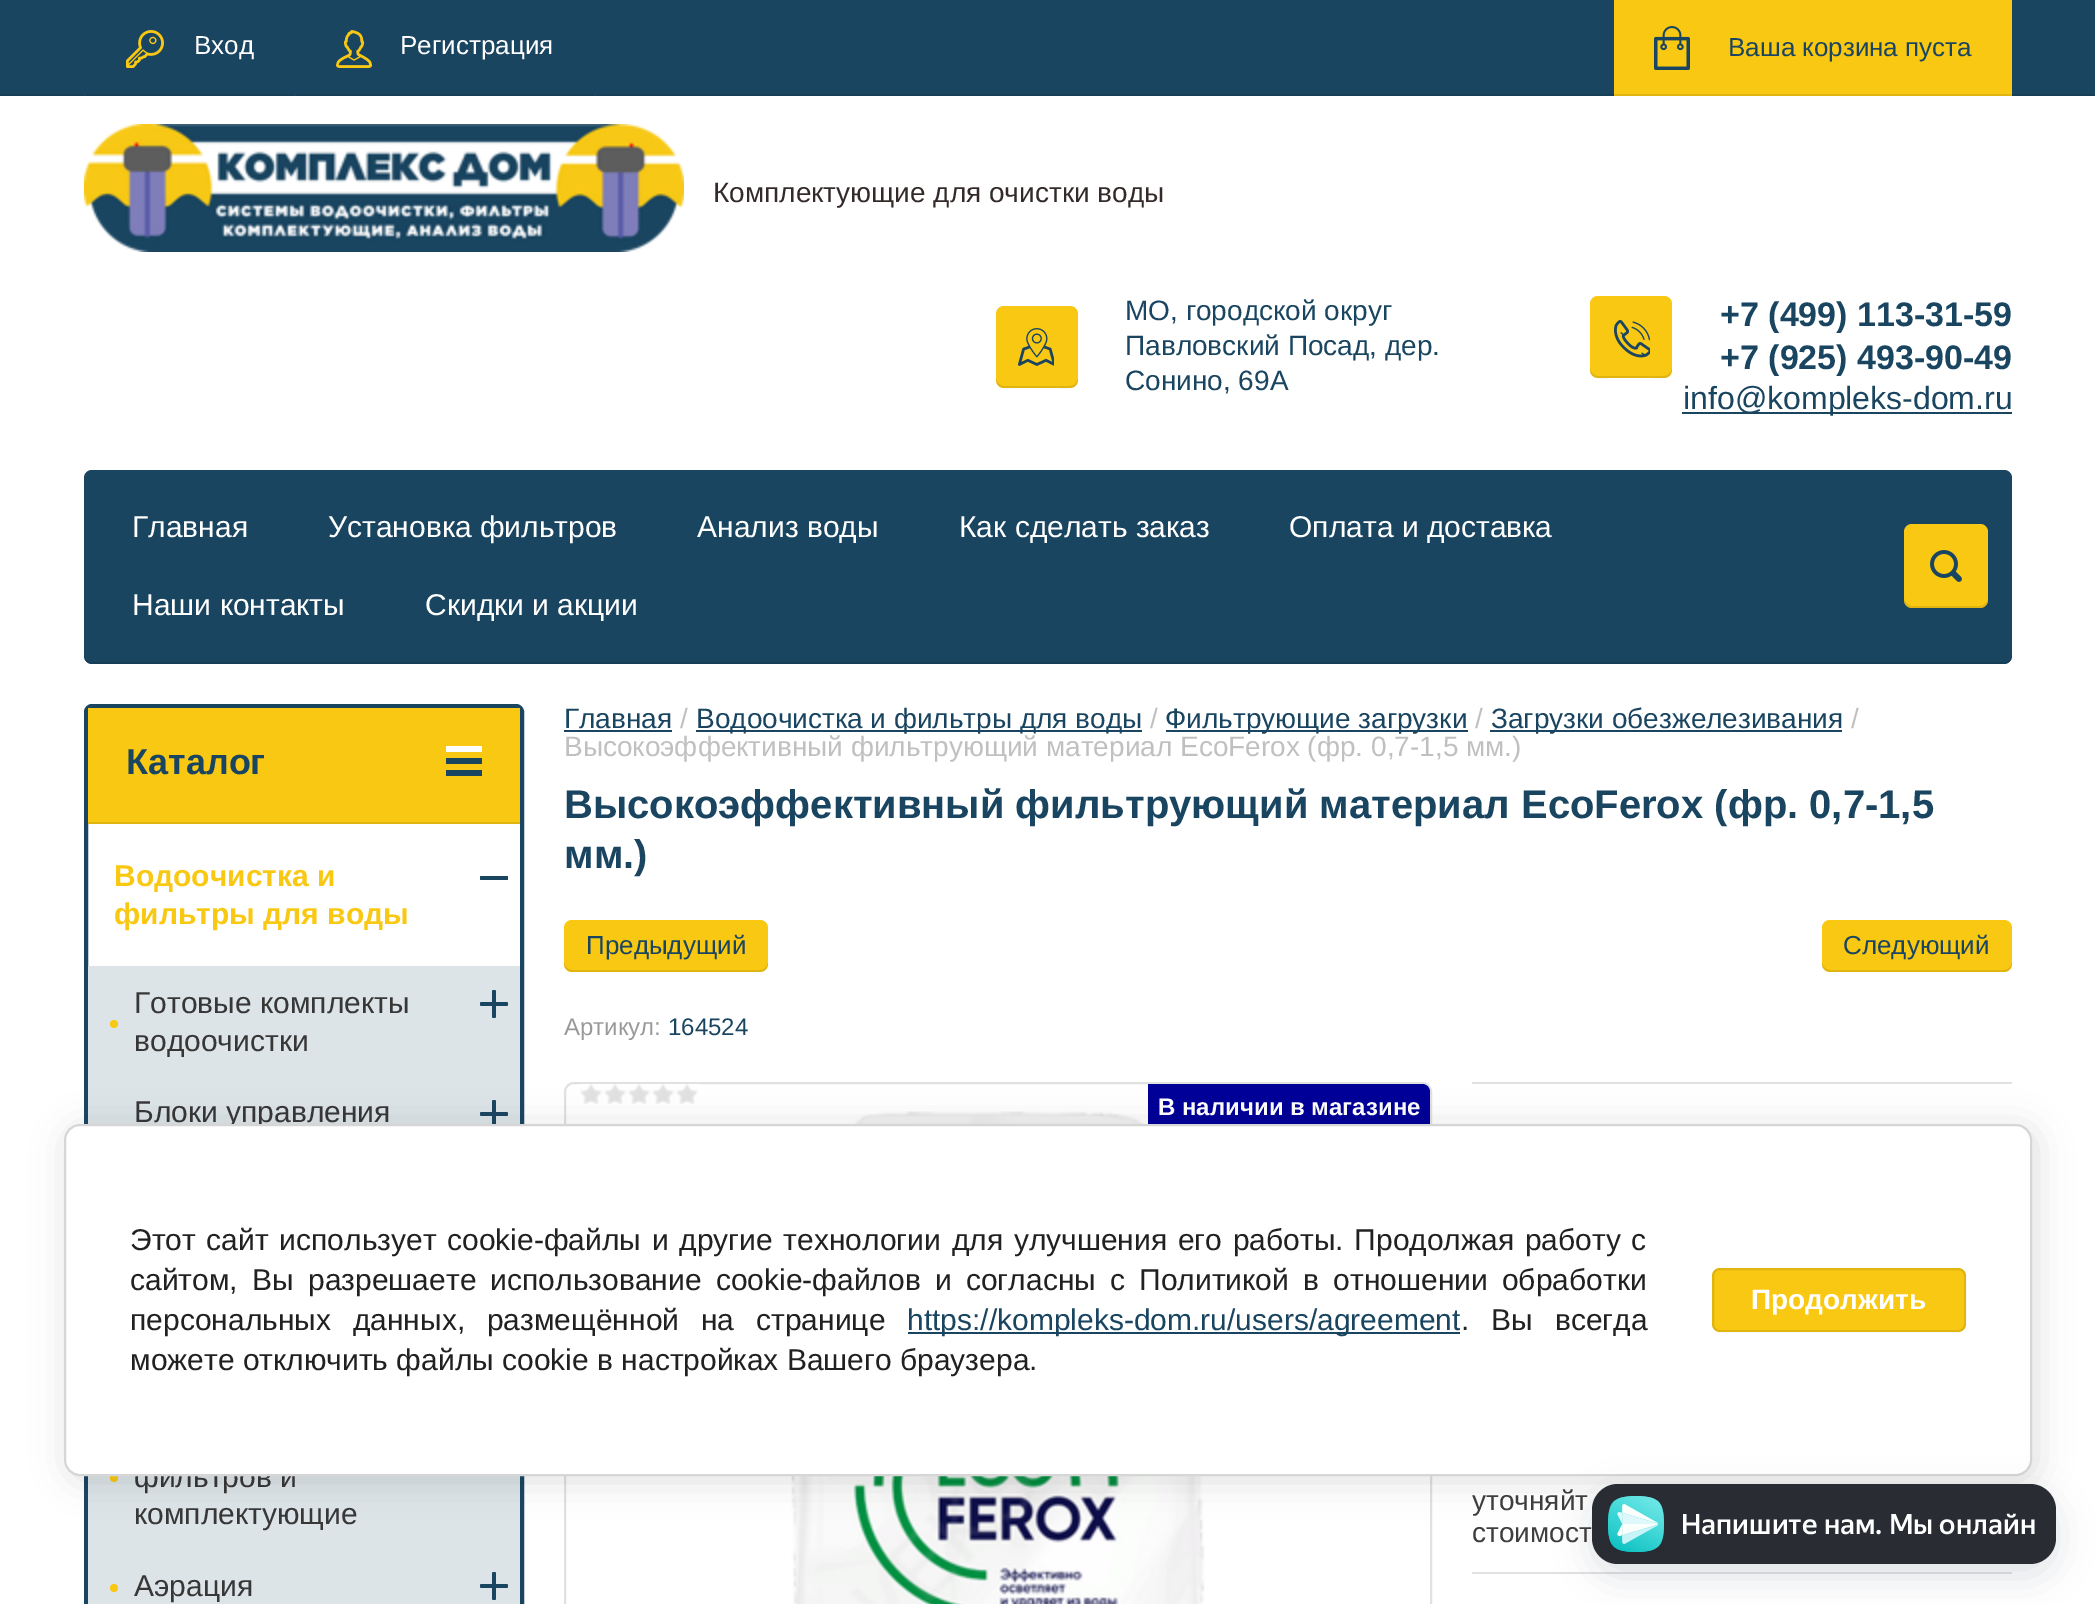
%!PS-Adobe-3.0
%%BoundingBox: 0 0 2095 1604
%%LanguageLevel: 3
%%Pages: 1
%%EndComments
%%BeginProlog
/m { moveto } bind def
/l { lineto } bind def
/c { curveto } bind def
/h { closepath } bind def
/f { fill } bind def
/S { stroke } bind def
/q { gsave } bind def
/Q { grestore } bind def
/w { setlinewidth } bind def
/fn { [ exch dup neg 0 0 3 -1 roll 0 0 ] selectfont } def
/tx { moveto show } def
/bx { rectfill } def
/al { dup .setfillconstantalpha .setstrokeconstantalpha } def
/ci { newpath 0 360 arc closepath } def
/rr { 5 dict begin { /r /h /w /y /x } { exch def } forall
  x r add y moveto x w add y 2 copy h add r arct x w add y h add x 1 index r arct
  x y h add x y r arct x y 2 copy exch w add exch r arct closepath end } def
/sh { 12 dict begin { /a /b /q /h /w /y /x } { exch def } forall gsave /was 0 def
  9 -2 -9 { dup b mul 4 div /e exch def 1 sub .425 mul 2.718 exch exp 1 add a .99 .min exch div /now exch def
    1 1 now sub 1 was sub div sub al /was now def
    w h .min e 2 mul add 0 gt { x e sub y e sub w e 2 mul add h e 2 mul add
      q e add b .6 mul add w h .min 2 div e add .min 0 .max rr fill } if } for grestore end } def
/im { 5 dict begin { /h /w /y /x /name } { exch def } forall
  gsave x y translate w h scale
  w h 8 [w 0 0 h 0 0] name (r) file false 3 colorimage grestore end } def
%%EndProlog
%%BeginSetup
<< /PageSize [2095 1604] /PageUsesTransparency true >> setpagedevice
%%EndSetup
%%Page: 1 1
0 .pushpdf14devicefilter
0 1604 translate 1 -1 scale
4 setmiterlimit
1 setgray
0 0 2095 1604 bx
0.102 0.271 0.38 setrgbcolor
0 0 2095 94 bx
0.09 0.243 0.341 setrgbcolor
0 94 2095 2 bx
0.102 0.271 0.38 setrgbcolor
84 94 2 2 bx
(image0.raw) 126 30 38 38 im
294 94 2 2 bx
/LiberationSans-Regular 26 fn
1 setgray
(Вход) 194 54 tx
(image1.raw) 336 30 36 38 im
0.102 0.271 0.38 setrgbcolor
594 94 2 2 bx
1 setgray
(Регистрация) 400 54 tx
0.976 0.784 0.075 setrgbcolor
1614 0 398 94 bx
0.878 0.706 0.067 setrgbcolor
1614 94 398 2 bx
(image2.raw) 1654 26 36 44 im
0.102 0.271 0.38 setrgbcolor
(Ваша корзина пуста) 1728 56 tx
(image3.raw) 84 124 600 128 im
/LiberationSans-Regular 28 fn
0.2 0.165 0.161 setrgbcolor
(Комплектующие для очистки воды) 713 202 tx
0.976 0.784 0.075 setrgbcolor
996 306 82 82 8 rr f
0.1 al
0 setgray
996 378 m 996 390 1005 388 1015 388 c 1059 388 l 1069 388 1078 390 1078 378 c 1078 382 1074 386 1070 386 c 1004 386 l 1000 386 996 382 996 378 c h f
1 al
(image4.raw) 1018 328 36 38 im
0.102 0.271 0.38 setrgbcolor
(МО, городской округ) 1125 320 tx
(Павловский Посад, дер.) 1125 355 tx
(Сонино, 69А) 1125 390 tx
0.976 0.784 0.075 setrgbcolor
1590 296 82 82 8 rr f
0.1 al
0 setgray
1590 368 m 1590 380 1599 378 1609 378 c 1653 378 l 1663 378 1672 380 1672 368 c 1672 372 1668 376 1664 376 c 1598 376 l 1594 376 1590 372 1590 368 c h f
1 al
(image5.raw) 1614 320 36 38 im
/LiberationSans-Bold 34 fn
0.102 0.271 0.38 setrgbcolor
(+7 \(499\) 113-31-59) 1720 326 tx
(+7 \(925\) 493-90-49) 1720 369 tx
1682 412 330 2 bx
/LiberationSans-Regular 32 fn
(info@kompleks-dom.ru) 1683 409 tx
84 470 1928 194 8 rr f
0.1 al
0 setgray
84 654 m 84 659 86 664 92 664 c 2004 664 l 2010 664 2012 659 2012 654 c 2012 658 2008 662 2004 662 c 92 662 l 88 662 84 658 84 654 c h f
/LiberationSans-Regular 30 fn
1 al
1 setgray
(Главная) 132 537 tx
(Установка фильтров) 328 537 tx
(Анализ воды) 697 537 tx
(Как сделать заказ) 959 537 tx
(Оплата и доставка) 1289 537 tx
(Наши контакты) 132 615 tx
(Скидки и акции) 425 615 tx
0.976 0.784 0.075 setrgbcolor
1904 524 84 84 8 rr f
0.1 al
0 setgray
1904 598 m 1904 610 1914 608 1923 608 c 1969 608 l 1978 608 1988 610 1988 598 c 1988 602 1984 606 1980 606 c 1912 606 l 1908 606 1904 602 1904 598 c h f
1 al
(image6.raw) 1930 550 32 32 im
0.102 0.271 0.38 setrgbcolor
4 w
86 706 436 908 6 rr S
0.976 0.784 0.075 setrgbcolor
88 708 432 114 bx
0.878 0.706 0.067 setrgbcolor
88 822 432 2 bx
/LiberationSans-Bold 36 fn
0.102 0.271 0.38 setrgbcolor
(Каталог) 126 774 tx
1 setgray
446 746 36 6 bx
0.102 0.271 0.38 setrgbcolor
446 758 36 6 bx
446 770 36 6 bx
/LiberationSans-Bold 30 fn
0.976 0.784 0.075 setrgbcolor
(Водоочистка и) 114 886 tx
(фильтры для воды) 114 924 tx
0.102 0.271 0.38 setrgbcolor
480 876 28 4 1 rr f
0.867 0.894 0.91 setrgbcolor
88 966 432 638 bx
/LiberationSans-Regular 30 fn
0.216 setgray
(Готовые комплекты) 134 1013 tx
0.976 0.784 0.075 setrgbcolor
114 1024 4 ci f
0.216 setgray
(водоочистки) 134 1051 tx
(image7.raw) 480 990 28 28 im
(Блоки управления) 134 1122 tx
(image8.raw) 480 1100 28 24 im
0.976 0.784 0.075 setrgbcolor
114 1478 4 ci f
0.216 setgray
(фильтров и) 134 1487 tx
(комплектующие) 134 1524 tx
0.976 0.784 0.075 setrgbcolor
114 1588 4 ci f
0.216 setgray
(Аэрация) 134 1596 tx
(image7.raw) 480 1572 28 28 im
/LiberationSans-Regular 28 fn
0.102 0.271 0.38 setrgbcolor
(Главная) 564 728 tx
564 730 108 2 bx
0.753 setgray
(/) 680 728 tx
0.102 0.271 0.38 setrgbcolor
696 730 446 2 bx
(Водоочистка и фильтры для воды) 696 728 tx
0.753 setgray
(/) 1150 728 tx
0.102 0.271 0.38 setrgbcolor
1166 730 302 2 bx
(Фильтрующие загрузки) 1165 728 tx
0.753 setgray
(/) 1475 728 tx
0.102 0.271 0.38 setrgbcolor
1490 730 352 2 bx
(Загрузки обезжелезивания) 1491 728 tx
0.753 setgray
(/) 1851 728 tx
(Высокоэффективный фильтрующий материал EcoFerox \(фр. 0,7-1,5 мм.\)) 564 756 tx
/LiberationSans-Bold 40 fn
0.102 0.271 0.38 setrgbcolor
(Высокоэффективный фильтрующий материал EcoFerox \(фр. 0,7-1,5) 564 818 tx
(мм.\)) 564 868 tx
0.976 0.784 0.075 setrgbcolor
564 920 204 52 8 rr f
0.1 al
0 setgray
564 962 m 564 964 l 564 968 568 972 572 972 c 760 972 l 764 972 768 968 768 964 c 768 962 l 768 966 764 970 760 970 c 572 970 l 568 970 564 966 564 962 c h f
/LiberationSans-Regular 26 fn
1 al
0.102 0.271 0.38 setrgbcolor
(Предыдущий) 586 954 tx
0.976 0.784 0.075 setrgbcolor
1822 920 190 52 8 rr f
0.1 al
0 setgray
1822 962 m 1822 964 l 1822 968 1826 972 1830 972 c 2004 972 l 2008 972 2012 968 2012 964 c 2012 962 l 2012 966 2008 970 2004 970 c 1830 970 l 1826 970 1822 966 1822 962 c h f
1 al
0.102 0.271 0.38 setrgbcolor
(Следующий) 1843 954 tx
/LiberationSans-Regular 24 fn
0.6 setgray
(Артикул:) 564 1035 tx
0.102 0.271 0.38 setrgbcolor
(164524) 668 1035 tx
0.882 setgray
2 w
565 1083 866 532 9 rr S
(image9.raw) 580 1084 118 20 im
(image10.raw) 791 1111 519 493 im
0 0 0.6 setrgbcolor
1148 1084 m 1422 1084 l 1426.5 1084 1430 1087.5 1430 1092 c 1430 1132 l 1148 1132 l h f
/LiberationSans-Bold 24 fn
1 setgray
(В наличии в магазине) 1158 1115 tx
0.882 setgray
1472 1082 540 2 bx
/LiberationSans-Regular 28 fn
0.243 setgray
(уточняйт) 1472 1510 tx
(стоимост) 1472 1542 tx
0.882 setgray
1472 1572 540 2 bx
0 setgray
68 1128 1968 352 16 18 0.14 sh
1 setgray
65 1125 1966 350 15 rr q f Q
0.839 setgray
S
/LiberationSans-Regular 30 fn
0.129 setgray
130 1250 m 2.4 0 32 (Этот сайт использует cookie-файлы и другие технологии для улучшения его работы. Продолжая работу с) widthshow
130 1290 m 5.9 0 32 (сайтом, Вы разрешаете использование cookie-файлов и согласны с Политикой в отношении обработки) widthshow
130 1330 m 13.5 0 32 (персональных данных, размещённой на странице) widthshow
0.102 0.271 0.38 setrgbcolor
908 1332 552 2 bx
(https://kompleks-dom.ru/users/agreement) 907 1330 tx
0.129 setgray
1461 1330 m 13.5 0 32 (. Вы всегда) widthshow
(можете отключить файлы cookie в настройках Вашего браузера.) 130 1370 tx
0.976 0.784 0.075 setrgbcolor
1712 1268 254 64 8 rr f
0.1 al
0 setgray
1713 1269 252 62 7 rr S
/LiberationSans-Bold 28 fn
1 al
1 setgray
(Продолжить) 1751 1309 tx
0.055 0.082 0.184 setrgbcolor
1592 1496 464 80 26 18 0.13 sh
0.161 0.173 0.2 setrgbcolor
1592 1484 464 80 26 rr f
(image11.raw) 1608 1496 56 56 im
/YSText-Medium 28 fn
1 setgray
(Напишите нам. Мы онлайн) 1681 1534 tx
.poppdf14devicefilter showpage
%%EOF
